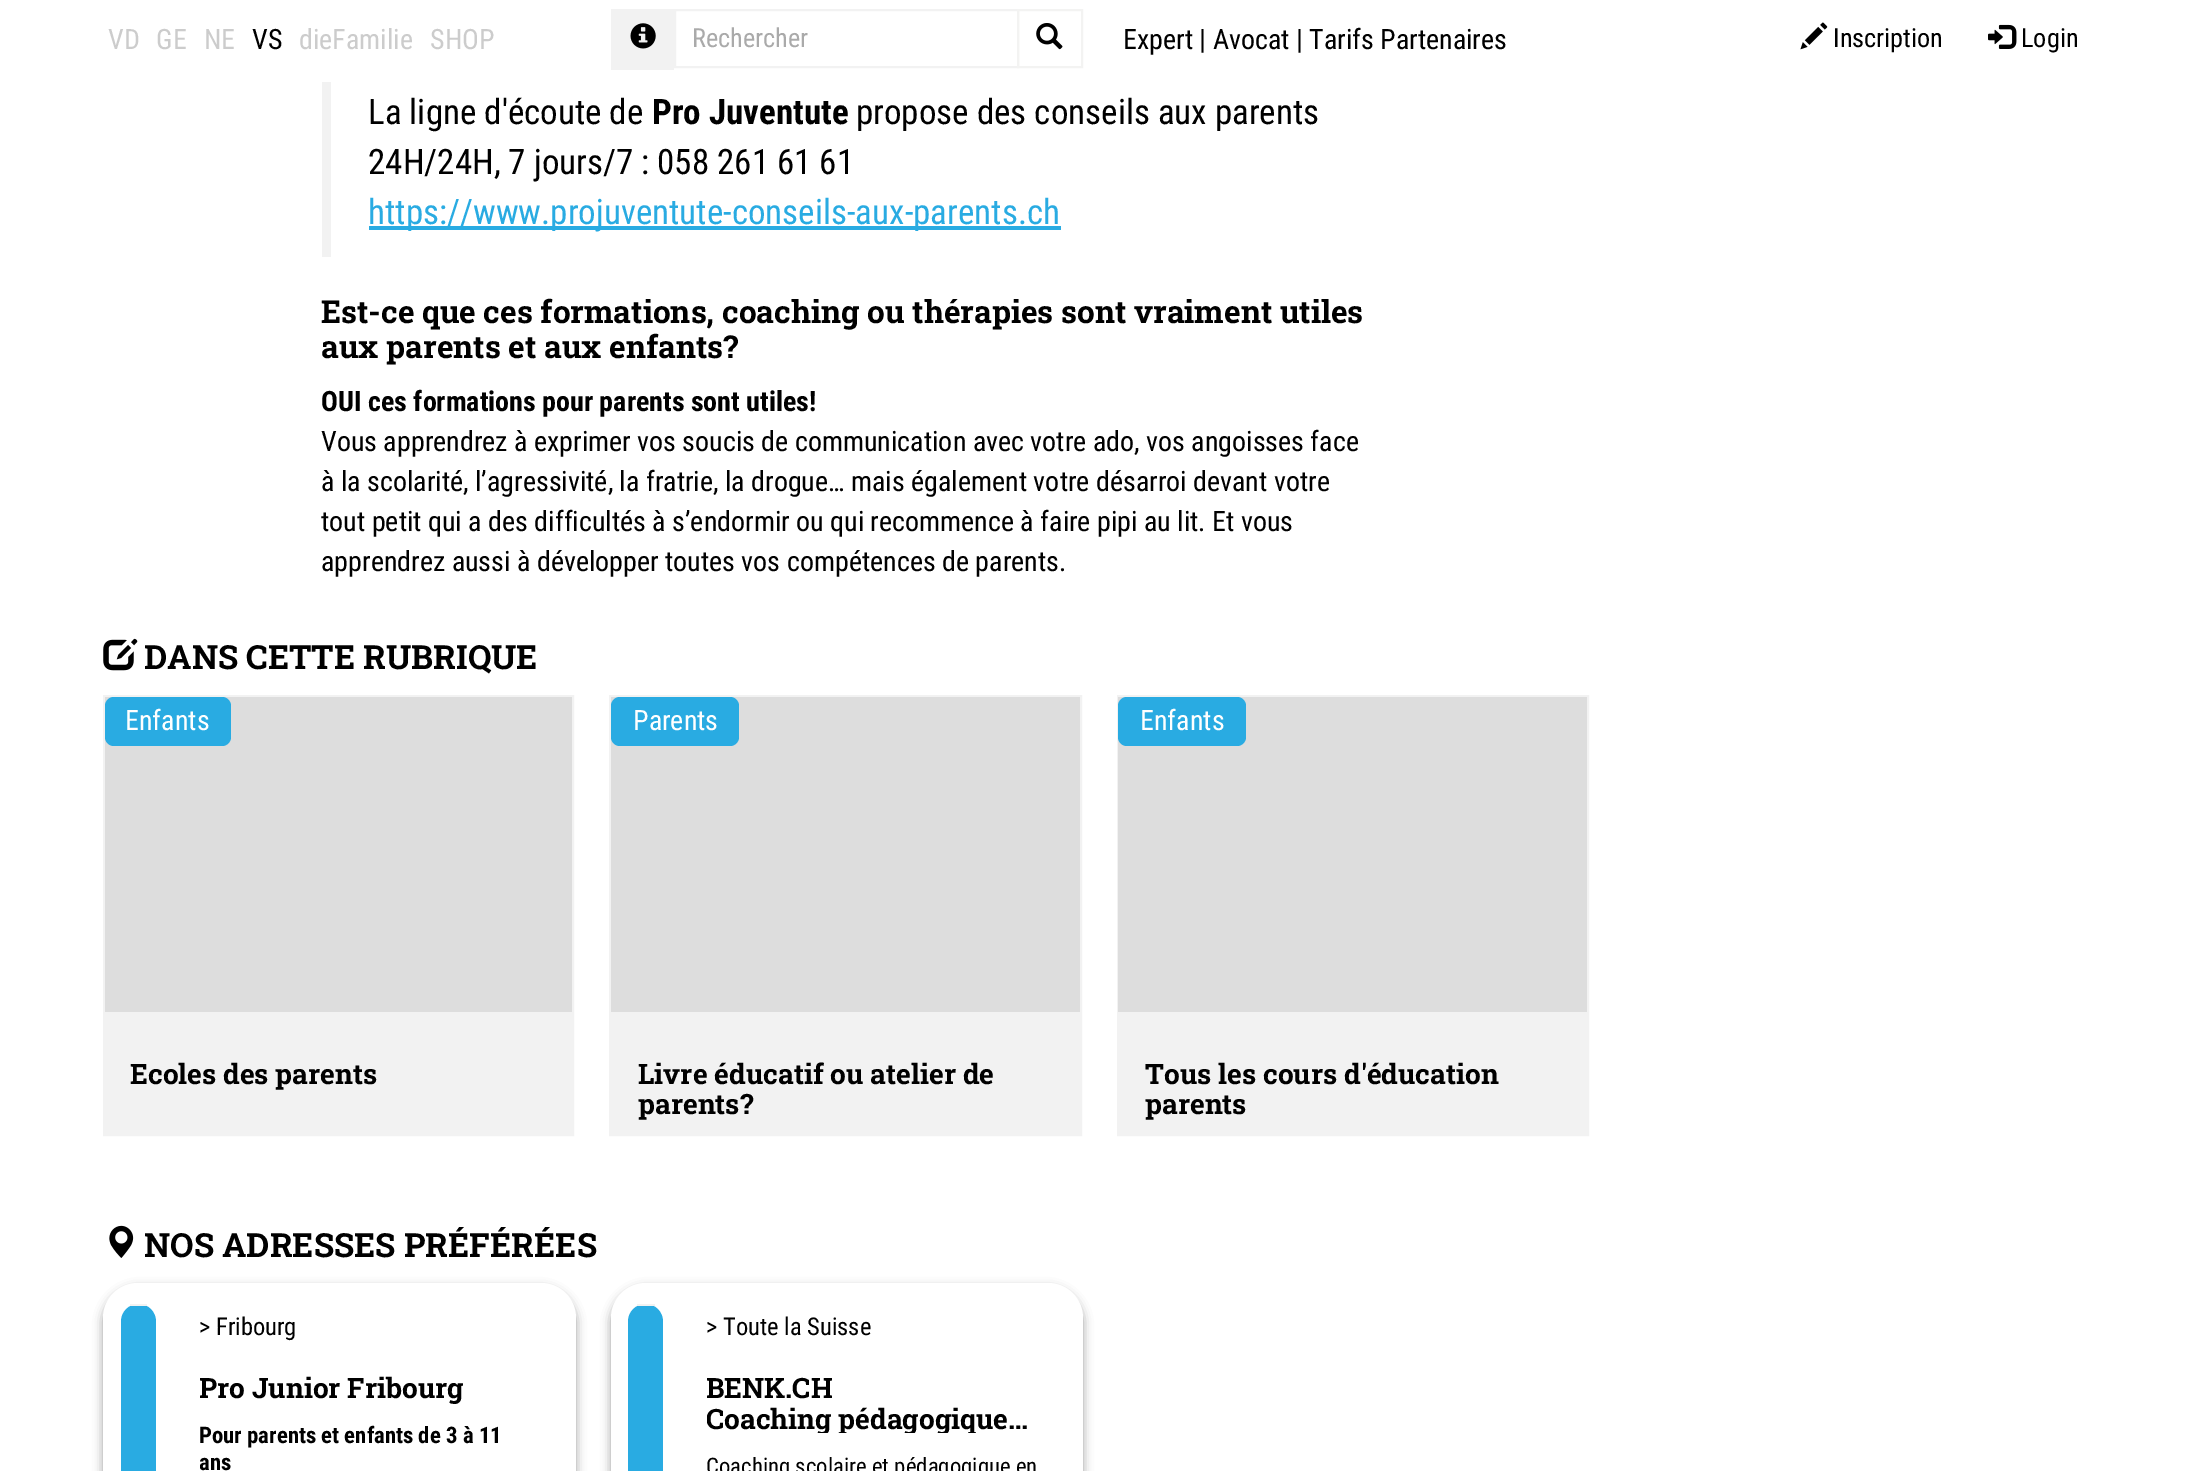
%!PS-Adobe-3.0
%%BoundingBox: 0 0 2199 1471
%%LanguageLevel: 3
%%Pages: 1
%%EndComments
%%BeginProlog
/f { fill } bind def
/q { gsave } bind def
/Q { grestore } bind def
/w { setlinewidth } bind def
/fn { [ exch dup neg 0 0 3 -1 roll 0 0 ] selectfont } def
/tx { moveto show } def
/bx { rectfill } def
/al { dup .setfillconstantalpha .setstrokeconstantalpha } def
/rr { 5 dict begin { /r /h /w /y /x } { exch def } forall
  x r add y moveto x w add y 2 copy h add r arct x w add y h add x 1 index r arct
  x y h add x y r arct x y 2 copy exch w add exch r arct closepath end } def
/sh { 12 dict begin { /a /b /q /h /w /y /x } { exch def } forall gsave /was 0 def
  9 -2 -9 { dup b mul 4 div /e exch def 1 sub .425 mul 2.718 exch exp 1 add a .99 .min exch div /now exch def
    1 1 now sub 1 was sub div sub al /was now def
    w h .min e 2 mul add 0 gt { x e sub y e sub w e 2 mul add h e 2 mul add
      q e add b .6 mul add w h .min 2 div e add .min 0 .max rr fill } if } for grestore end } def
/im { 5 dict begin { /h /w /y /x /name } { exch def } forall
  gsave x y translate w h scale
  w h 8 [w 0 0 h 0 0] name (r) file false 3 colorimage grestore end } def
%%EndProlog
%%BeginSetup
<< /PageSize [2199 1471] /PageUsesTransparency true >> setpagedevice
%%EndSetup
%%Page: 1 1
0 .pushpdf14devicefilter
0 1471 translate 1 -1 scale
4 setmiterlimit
1 setgray
0 0 2199 1471 bx
/RobotoCondensed-Regular 28 fn
0.8 setgray
(VD) 108 49 tx
(GE) 156 49 tx
(NE) 204 49 tx
0 setgray
(VS) 252 49 tx
0.8 setgray
(dieFamilie) 299 49 tx
(SHOP) 430 49 tx
0.949 setgray
611 9 63 61 bx
(image0.raw) 630 23 26 26 im
2 w
675 10 343 57 rectstroke
/RobotoCondensed-Regular 26.25 fn
0.667 setgray
(Rechercher) 692 47 tx
0.953 0.953 0.949 setrgbcolor
1018 10 64 57 rectstroke
(image1.raw) 1036 23 27 27 im
/RobotoCondensed-Regular 28 fn
0 setgray
(Expert | Avocat | Tarifs Partenaires) 1123 49 tx
(image2.raw) 1800 22 28 28 im
/RobotoCondensed-Regular 26.25 fn
(Inscription) 1833 47 tx
(image3.raw) 1988 24 29 25 im
(Login) 2021 47 tx
0.949 setgray
322 82 9 175 bx
/RobotoCondensed-Regular 35 fn
0 setgray
(La ligne d'écoute de) 368 124 tx
/RobotoCondensed-Bold 35 fn
(Pro Juventute) 652 124 tx
/RobotoCondensed-Regular 35 fn
(propose des conseils aux parents) 856 124 tx
(24H/24H, 7 jours/7 : 058 261 61 61) 368 174 tx
0.161 0.671 0.886 setrgbcolor
369 226 692 4 bx
(https://www.projuventute-conseils-aux-parents.ch) 368 224 tx
/RobotoSlab-Bold 31.5 fn
0 setgray
(Est-ce que ces formations, coaching ou thérapies sont vraiment utiles) 321 323 tx
(aux parents et aux enfants?) 321 358 tx
/RobotoCondensed-Bold 28 fn
(OUI ces formations pour parents sont utiles!) 321 411 tx
/RobotoCondensed-Regular 28 fn
(Vous apprendrez à exprimer vos soucis de communication avec votre ado, vos angoisses face) 321 451 tx
(à la scolarité, l’agressivité, la fratrie, la drogue… mais également votre désarroi devant votre) 321 491 tx
(tout petit qui a des difficultés à s’endormir ou qui recommence à faire pipi au lit. Et vous) 321 531 tx
(apprendrez aussi à développer toutes vos compétences de parents.) 321 571 tx
(image4.raw) 103 638 35 33 im
/RobotoSlab-Bold 33.25 fn
(DANS CETTE RUBRIQUE) 144 669 tx
0.949 setgray
104 696 469 439 rectstroke
0.867 setgray
105 697 467 315 bx
0.161 0.671 0.886 setrgbcolor
105 697 126 49 9 rr f
/RobotoCondensed-Regular 28 fn
1 setgray
(Enfants) 125 730 tx
0.949 setgray
105 1012 467 122 bx
/RobotoSlab-Bold 28 fn
0 setgray
(Ecoles des parents) 130 1084 tx
0.949 setgray
610 696 471 439 rectstroke
0.867 setgray
611 697 469 315 bx
0.161 0.671 0.886 setrgbcolor
611 697 128 49 9 rr f
/RobotoCondensed-Regular 28 fn
1 setgray
(Parents) 633 730 tx
0.949 setgray
611 1012 469 122 bx
/RobotoSlab-Bold 28 fn
0 setgray
(Livre éducatif ou atelier de) 638 1084 tx
(parents?) 638 1114 tx
0.949 setgray
1118 696 470 439 rectstroke
0.867 setgray
1118 697 469 315 bx
0.161 0.671 0.886 setrgbcolor
1118 697 128 49 9 rr f
/RobotoCondensed-Regular 28 fn
1 setgray
(Enfants) 1140 730 tx
0.949 setgray
1119 1012 468 122 bx
/RobotoSlab-Bold 28 fn
0 setgray
(Tous les cours d'éducation) 1145 1084 tx
(parents) 1145 1114 tx
(image5.raw) 109 1225 25 33 im
/RobotoSlab-Bold 33.25 fn
(NOS ADRESSES PRÉFÉRÉES) 144 1257 tx
103 1288 473 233 35 5 0.23 sh
103 1288 473 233 35 5 0.16 sh
1 setgray
103 1283 473 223 35 rr f
0.161 0.671 0.886 setrgbcolor
121 1304 35 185 17.5 rr f
0.949 setgray
130 1304 17 2 bx
/RobotoCondensed-Regular 24.5 fn
0 setgray
(> Fribourg) 199 1335 tx
q
200 1372 332 32 rectclip
/RobotoSlab-Bold 28 fn
(Pro Junior Fribourg) 199 1398 tx
Q
q
200 1423 332 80 rectclip
/RobotoCondensed-Bold 22.75 fn
(Pour parents et enfants de 3 à 11) 199 1443 tx
(ans) 199 1470 tx
Q
611 1288 472 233 35 5 0.23 sh
611 1288 472 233 35 5 0.16 sh
1 setgray
611 1283 472 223 35 rr f
0.161 0.671 0.886 setrgbcolor
628 1304 35 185 17.5 rr f
0.949 setgray
637 1304 18 2 bx
0 setgray
(> Toute la Suisse) 706 1335 tx
q
707 1372 333 61 rectclip
/RobotoSlab-Bold 28 fn
(BENK.CH) 706 1398 tx
(Coaching pédagogique…) 706 1429 tx
Q
/RobotoCondensed-Regular 22.75 fn
(Coaching scolaire et pédagogique en) 706 1474 tx
.poppdf14devicefilter showpage
%%EOF
